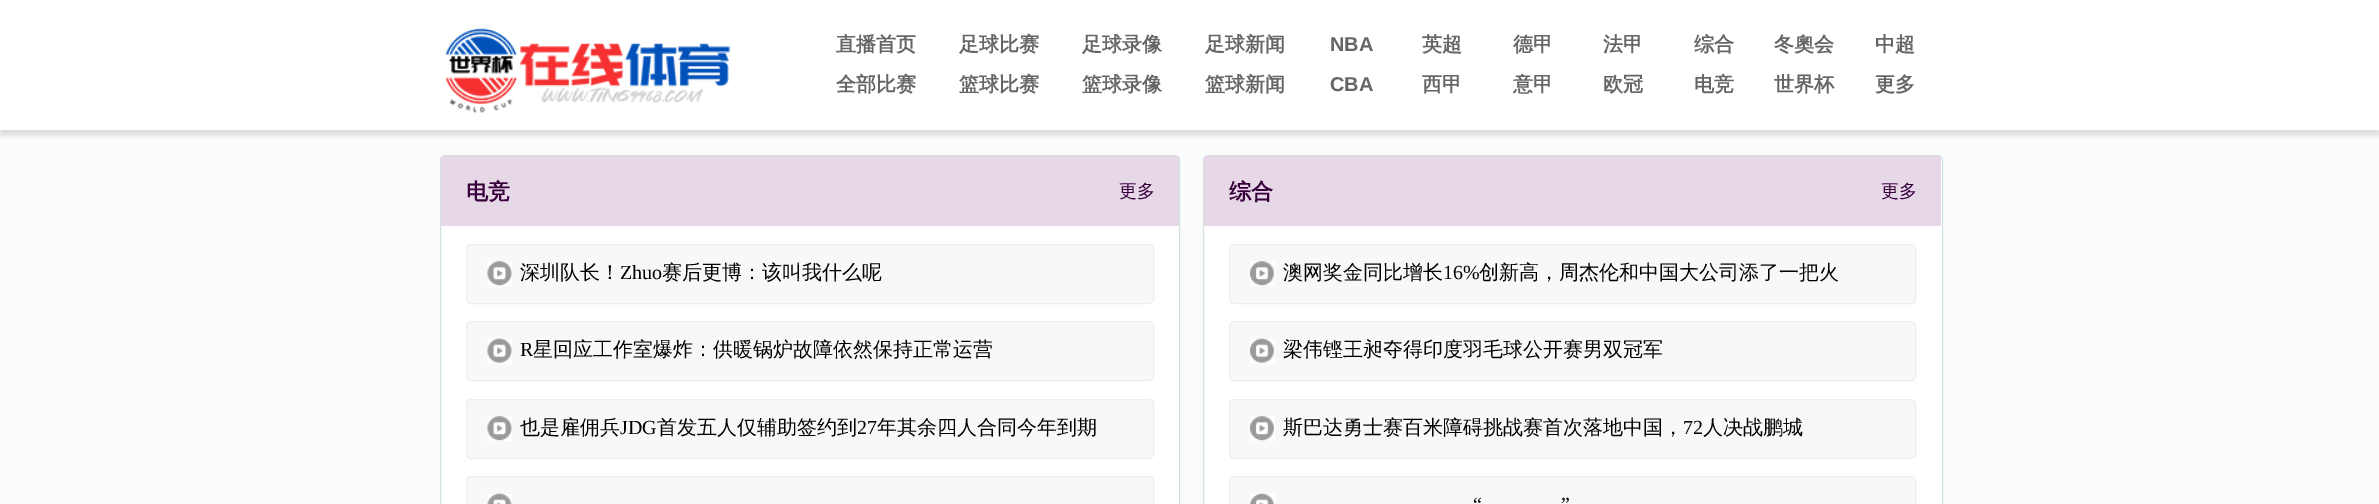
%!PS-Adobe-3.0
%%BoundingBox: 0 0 2379 504
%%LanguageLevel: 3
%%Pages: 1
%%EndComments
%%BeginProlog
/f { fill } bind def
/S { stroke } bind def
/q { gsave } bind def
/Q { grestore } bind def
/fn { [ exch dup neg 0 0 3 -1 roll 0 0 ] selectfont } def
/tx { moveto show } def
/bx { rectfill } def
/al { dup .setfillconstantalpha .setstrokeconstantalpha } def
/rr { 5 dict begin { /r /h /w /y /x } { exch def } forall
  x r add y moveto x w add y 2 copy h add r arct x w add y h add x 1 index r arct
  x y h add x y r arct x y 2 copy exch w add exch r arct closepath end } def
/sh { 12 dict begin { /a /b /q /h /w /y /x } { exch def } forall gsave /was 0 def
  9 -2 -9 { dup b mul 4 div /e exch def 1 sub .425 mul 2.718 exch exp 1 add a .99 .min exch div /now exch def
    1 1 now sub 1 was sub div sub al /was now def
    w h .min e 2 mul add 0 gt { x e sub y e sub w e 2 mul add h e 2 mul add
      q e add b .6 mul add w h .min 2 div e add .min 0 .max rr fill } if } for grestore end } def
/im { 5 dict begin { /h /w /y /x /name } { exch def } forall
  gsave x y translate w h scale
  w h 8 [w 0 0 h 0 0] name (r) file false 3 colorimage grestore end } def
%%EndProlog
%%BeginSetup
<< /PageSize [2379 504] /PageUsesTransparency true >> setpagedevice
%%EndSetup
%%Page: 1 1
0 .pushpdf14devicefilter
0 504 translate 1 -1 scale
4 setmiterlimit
0.98 0.988 0.988 setrgbcolor
0 0 2379 504 bx
0 setgray
0 5 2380 130 0 2.5 0.12 sh
1 setgray
0 0 2379 130 bx
(image0.raw) 446 28 285 85 im
/WenQuanYiZenHei-Bold 20 fn
0.4 setgray
(直播首页) 836 51 tx
(足球比赛) 959 51 tx
(足球录像) 1082 51 tx
(足球新闻) 1205 51 tx
/LiberationSans-Bold 20 fn
(NBA) 1330 51 tx
/WenQuanYiZenHei-Bold 20 fn
(英超) 1422 51 tx
(德甲) 1513 51 tx
(法甲) 1603 51 tx
(综合) 1694 51 tx
(冬奧会) 1774 51 tx
(中超) 1875 51 tx
(全部比赛) 836 91 tx
(篮球比赛) 959 91 tx
(篮球录像) 1082 91 tx
(篮球新闻) 1205 91 tx
/LiberationSans-Bold 20 fn
(CBA) 1330 91 tx
/WenQuanYiZenHei-Bold 20 fn
(西甲) 1422 91 tx
(意甲) 1513 91 tx
(欧冠) 1603 91 tx
(电竞) 1694 91 tx
(世界杯) 1774 91 tx
(更多) 1875 91 tx
1 setgray
440.5 155.5 739 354 4.5 rr q f Q
0.827 0.882 0.886 setrgbcolor
S
0.906 0.847 0.91 setrgbcolor
441 156 738 70 bx
/WenQuanYiZenHei-Bold 22 fn
0.216 0 0.235 setrgbcolor
(电竞) 466 199 tx
/WenQuanYiZenHei-Medium 18 fn
(更多) 1119 197 tx
0.973 setgray
466.5 244.5 687 59 4.5 rr q f Q
0.933 setgray
S
(image1.raw) 487 261 25 25 im
/WenQuanYiZenHei-Medium 20 fn
0 setgray
(深圳队长！) 520 279 tx
/LiberationSerif-Regular 20 fn
(Zhuo) 620 279 tx
/WenQuanYiZenHei-Medium 20 fn
(赛后更博：该叫我什么呢) 662 279 tx
0.973 setgray
466.5 321.5 687 59 4.5 rr q f Q
0.933 setgray
S
(image2.raw) 487 338 25 26 im
/LiberationSerif-Regular 20 fn
0 setgray
(R) 520 356 tx
/WenQuanYiZenHei-Medium 20 fn
(星回应工作室爆炸：供暖锅炉故障依然保持正常运营) 533 356 tx
0.973 setgray
466.5 399.5 687 59 4.5 rr q f Q
0.933 setgray
S
(image1.raw) 487 416 25 25 im
0 setgray
(也是雇佣兵) 520 434 tx
/LiberationSerif-Regular 20 fn
(JDG) 620 434 tx
/WenQuanYiZenHei-Medium 20 fn
(首发五人仅辅助签约到) 657 434 tx
/LiberationSerif-Regular 20 fn
(27) 857 434 tx
/WenQuanYiZenHei-Medium 20 fn
(年其余四人合同今年到期) 877 434 tx
0.973 setgray
466.5 476.5 687 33 4.5 rr q f Q
0.933 setgray
S
(image3.raw) 487 493 25 11 im
1 setgray
1203.5 155.5 739 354 4.5 rr q f Q
0.827 0.882 0.886 setrgbcolor
S
0.906 0.847 0.91 setrgbcolor
1204 156 737 70 bx
/WenQuanYiZenHei-Bold 22 fn
0.216 0 0.235 setrgbcolor
(综合) 1229 199 tx
/WenQuanYiZenHei-Medium 18 fn
(更多) 1881 197 tx
0.973 setgray
1229.5 244.5 686 59 4.5 rr q f Q
0.933 setgray
S
(image4.raw) 1250 261 25 25 im
/WenQuanYiZenHei-Medium 20 fn
0 setgray
(澳网奖金同比增长) 1283 279 tx
/LiberationSerif-Regular 20 fn
(16%) 1443 279 tx
/WenQuanYiZenHei-Medium 20 fn
(创新高，周杰伦和中国大公司添了一把火) 1479 279 tx
0.973 setgray
1229.5 321.5 686 59 4.5 rr q f Q
0.933 setgray
S
(image5.raw) 1250 338 25 26 im
0 setgray
(梁伟铿王昶夺得印度羽毛球公开赛男双冠军) 1283 356 tx
0.973 setgray
1229.5 399.5 686 59 4.5 rr q f Q
0.933 setgray
S
(image4.raw) 1250 416 25 25 im
0 setgray
(斯巴达勇士赛百米障碍挑战赛首次落地中国，) 1283 434 tx
/LiberationSerif-Regular 20 fn
(72) 1683 434 tx
/WenQuanYiZenHei-Medium 20 fn
(人决战鹏城) 1703 434 tx
0.973 setgray
1229.5 476.5 686 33 4.5 rr q f Q
0.933 setgray
S
(image6.raw) 1250 493 25 11 im
/LiberationSerif-Regular 20 fn
0 setgray
(“) 1473 511 tx
(”) 1561 511 tx
.poppdf14devicefilter showpage
%%EOF
